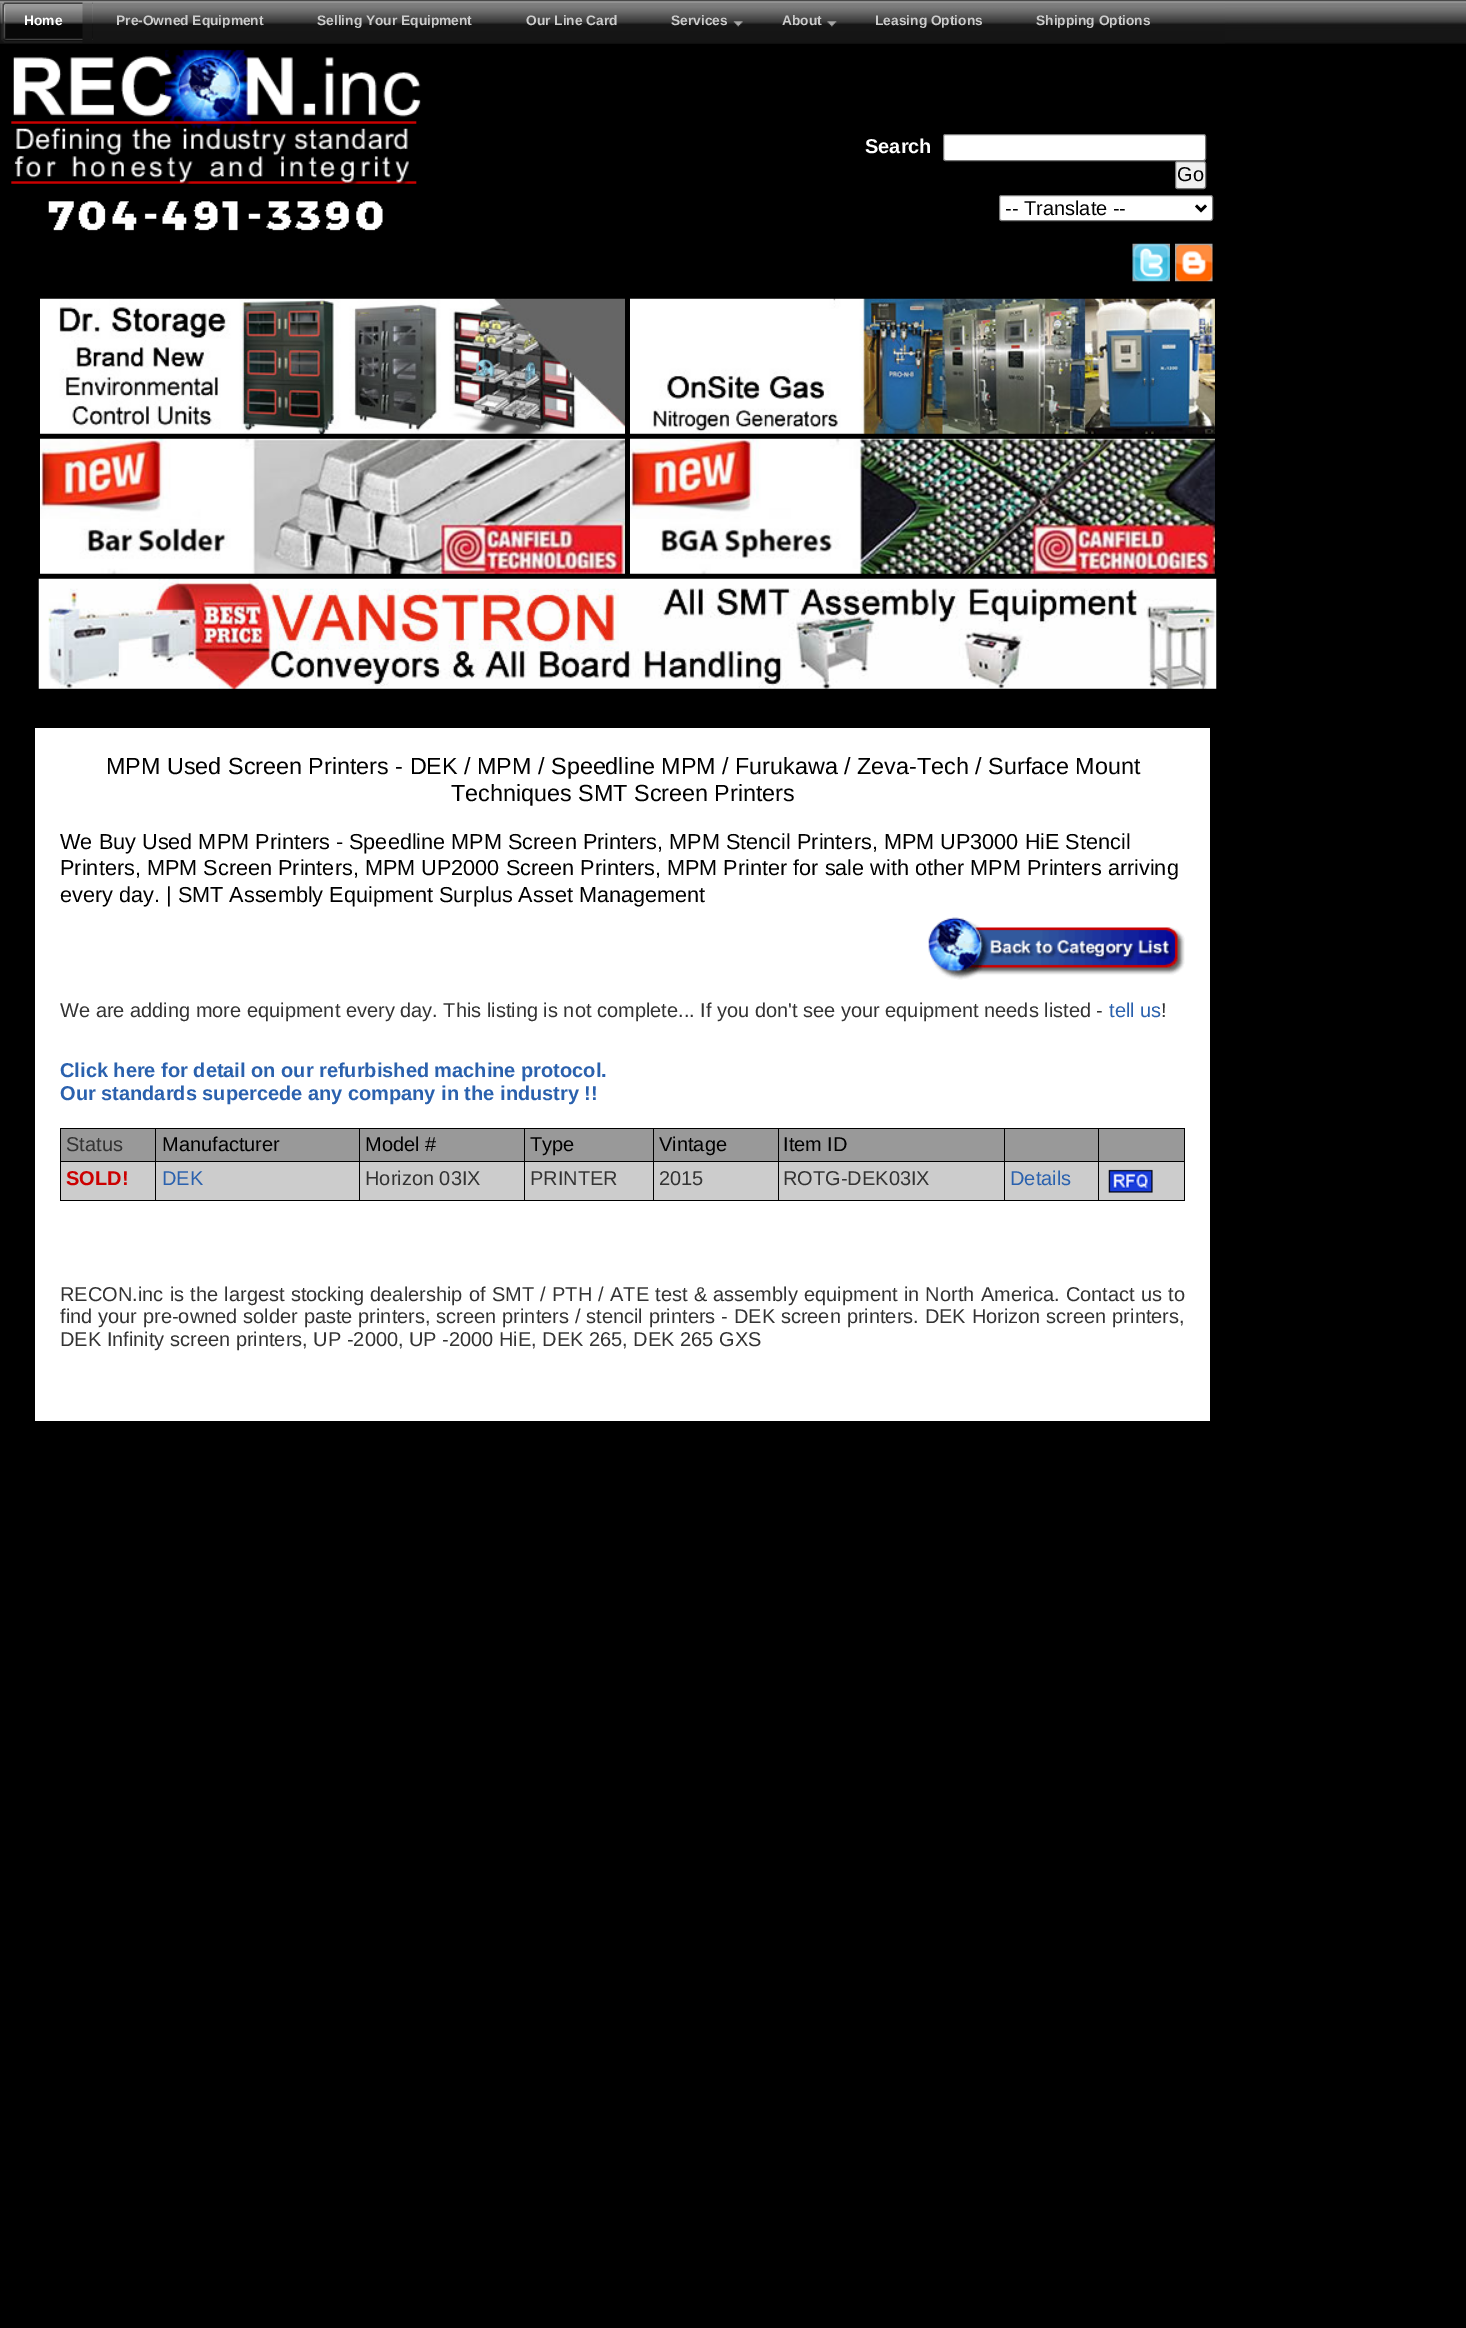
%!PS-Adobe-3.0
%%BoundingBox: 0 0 1466 2328
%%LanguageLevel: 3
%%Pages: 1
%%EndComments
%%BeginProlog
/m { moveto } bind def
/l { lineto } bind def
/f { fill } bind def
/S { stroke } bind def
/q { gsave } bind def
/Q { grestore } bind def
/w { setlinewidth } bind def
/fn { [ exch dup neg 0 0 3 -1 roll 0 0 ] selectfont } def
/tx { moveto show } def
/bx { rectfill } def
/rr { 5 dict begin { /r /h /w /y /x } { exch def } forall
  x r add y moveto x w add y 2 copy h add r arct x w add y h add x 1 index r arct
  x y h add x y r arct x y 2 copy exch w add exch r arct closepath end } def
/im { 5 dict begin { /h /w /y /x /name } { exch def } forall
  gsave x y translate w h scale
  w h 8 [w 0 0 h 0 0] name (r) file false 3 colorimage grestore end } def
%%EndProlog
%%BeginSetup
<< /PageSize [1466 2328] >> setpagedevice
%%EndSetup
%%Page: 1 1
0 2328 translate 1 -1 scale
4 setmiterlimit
0 setgray
0 0 1466 2328 bx
(image0.raw) 1225 0 241 44 im
(image1.raw) 0 0 1225 44 im
(image2.raw) 1 2 92 41 im
(image3.raw) 82 2 11 41 im
/LiberationSans-Bold 13.75 fn
1 setgray
(Home) 24 25 tx
0.8 setgray
(Pre-Owned Equipment) 116 25 tx
(Selling Your Equipment) 317 25 tx
(Our Line Card) 526 25 tx
(image4.raw) 733 21 10 6 im
(Services) 671 25 tx
(image5.raw) 827 21 10 6 im
(About) 782 25 tx
(Leasing Options) 875 25 tx
(Shipping Options) 1036 25 tx
(image6.raw) 11 49 410 182 im
/LiberationSans-Bold 20 fn
1 setgray
(Search) 865 153 tx
943.5 134.5 262 26 2 rr q f Q
0.463 setgray
S
0.937 setgray
1175.5 161.5 30 27 2 rr q f Q
0.463 setgray
S
/LiberationSans-Regular 20 fn
0 setgray
(Go) 1177 181 tx
1 setgray
999.5 195.5 213 25 2 rr q f Q
0.463 setgray
S
0 setgray
2.5 w
1196 205.5 m 1201 210.5 l 1206 205.5 l S
(-- Translate --) 1005 215 tx
(image7.raw) 1132 243 38 39 im
(image8.raw) 1175 243 38 39 im
(image9.raw) 40 298 585 136 im
(image10.raw) 630 298 585 136 im
(image11.raw) 40 438 585 136 im
(image12.raw) 630 438 585 136 im
(image13.raw) 38 578 1179 111 im
1 setgray
35 728 1175 693 bx
/LiberationSans-Regular 23.35 fn
0 setgray
(MPM Used Screen Printers - DEK / MPM / Speedline MPM / Furukawa / Zeva-Tech / Surface Mount) 106 774 tx
(Techniques SMT Screen Printers) 451 801 tx
/LiberationSans-Regular 21.67 fn
(We Buy Used MPM Printers - Speedline MPM Screen Printers, MPM Stencil Printers, MPM UP3000 HiE Stencil) 60 849 tx
(Printers, MPM Screen Printers, MPM UP2000 Screen Printers, MPM Printer for sale with other MPM Printers arriving) 60 875 tx
(every day. | SMT Assembly Equipment Surplus Asset Management) 60 902 tx
(image14.raw) 928 917 257 63 im
/LiberationSans-Regular 20 fn
0.2 setgray
(We are adding more equipment every day. This listing is not complete... If you don't see your equipment needs listed -) 60 1017 tx
0.165 0.38 0.682 setrgbcolor
(tell us) 1109 1017 tx
0.2 setgray
(!) 1161 1017 tx
/LiberationSans-Bold 20 fn
0.165 0.38 0.682 setrgbcolor
(Click here for detail on our refurbished machine protocol.) 60 1077 tx
(Our standards supercede any company in the industry !!) 60 1100 tx
0 setgray
60 1128 1125 1 bx
1184 1128 1 73 bx
60 1200 1125 1 bx
60 1128 1 73 bx
0.6 setgray
61 1129 1123 32 bx
/LiberationSans-Regular 20 fn
0.2 setgray
(Status) 66 1151 tx
0.8 setgray
61 1162 1123 38 bx
0 setgray
1098 1161 87 1 bx
1098 1161 1 40 bx
1004 1161 95 1 bx
1004 1161 1 40 bx
778 1161 227 1 bx
778 1161 1 40 bx
653 1161 126 1 bx
653 1161 1 40 bx
524 1161 130 1 bx
524 1161 1 40 bx
359 1161 166 1 bx
359 1161 1 40 bx
155 1161 205 1 bx
155 1161 1 40 bx
60 1161 96 1 bx
155 1128 1 35 bx
(Manufacturer) 162 1151 tx
359 1128 1 35 bx
(Model #) 365 1151 tx
524 1128 1 35 bx
(Type) 530 1151 tx
653 1128 1 35 bx
(Vintage) 659 1151 tx
778 1128 1 35 bx
(Item ID) 783 1151 tx
1004 1128 1 35 bx
1098 1128 1 35 bx
/LiberationSans-Bold 20 fn
0.8 0 0 setrgbcolor
(SOLD!) 66 1185 tx
/LiberationSans-Regular 20 fn
0.165 0.38 0.682 setrgbcolor
(DEK) 162 1185 tx
0.2 setgray
(Horizon 03IX) 365 1185 tx
(PRINTER) 530 1185 tx
(2015) 659 1185 tx
(ROTG-DEK03IX) 783 1185 tx
0.165 0.38 0.682 setrgbcolor
(Details) 1010 1185 tx
(image15.raw) 1108 1169 45 24 im
0.2 setgray
60 1301 m 0.7 0 32 (RECON.inc is the largest stocking dealership of SMT / PTH / ATE test & assembly equipment in North America. Contact us to) widthshow
60 1323 m 0.3 0 32 (find your pre-owned solder paste printers, screen printers / stencil printers - DEK screen printers. DEK Horizon screen printers,) widthshow
(DEK Infinity screen printers, UP -2000, UP -2000 HiE, DEK 265, DEK 265 GXS) 60 1346 tx
showpage
%%EOF
